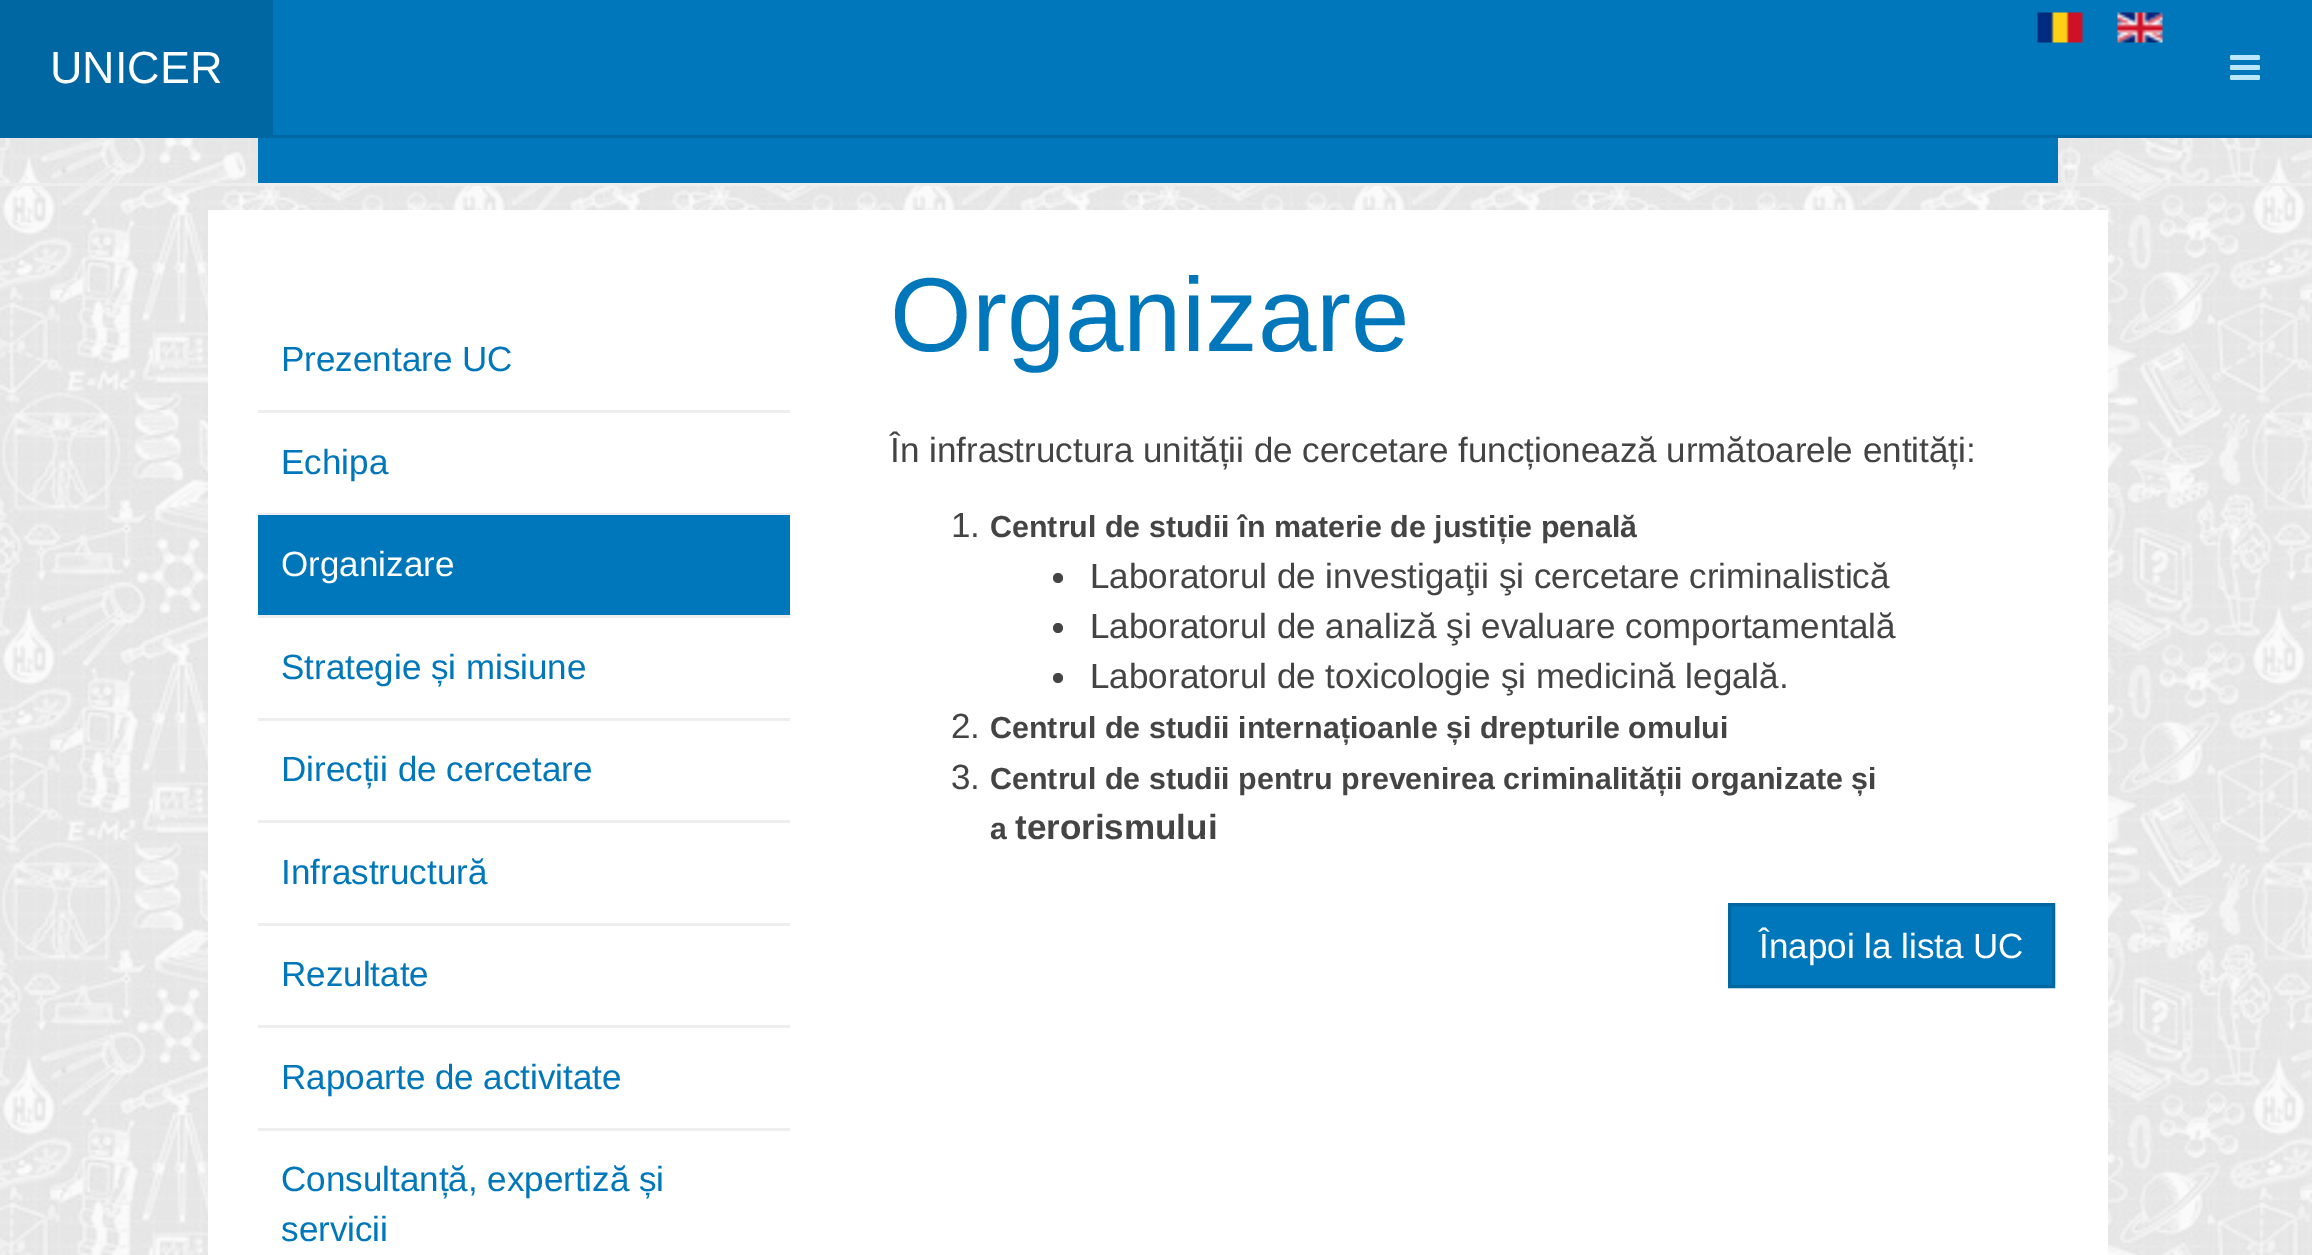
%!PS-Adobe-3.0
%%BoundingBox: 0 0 2312 1255
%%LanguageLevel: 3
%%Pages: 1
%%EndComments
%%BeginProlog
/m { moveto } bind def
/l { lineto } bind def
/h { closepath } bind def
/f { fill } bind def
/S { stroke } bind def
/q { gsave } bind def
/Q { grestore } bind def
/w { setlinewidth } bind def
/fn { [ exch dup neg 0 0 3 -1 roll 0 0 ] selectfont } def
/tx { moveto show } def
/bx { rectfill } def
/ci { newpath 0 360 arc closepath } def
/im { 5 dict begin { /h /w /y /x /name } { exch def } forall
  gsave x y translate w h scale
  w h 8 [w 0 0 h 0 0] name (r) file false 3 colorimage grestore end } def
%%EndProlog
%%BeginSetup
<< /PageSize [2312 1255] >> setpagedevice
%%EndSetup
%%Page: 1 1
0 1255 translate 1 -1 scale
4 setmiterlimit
1 setgray
0 0 2312 1255 bx
(image0.raw) 0 138 2312 1117 im
0 0.467 0.733 setrgbcolor
273 0 2039 135 bx
0 0.404 0.635 setrgbcolor
273 135 2039 3 bx
(image1.raw) 2037 12 46 31 im
(image2.raw) 2117 12 46 31 im
0 0 273 138 bx
/LiberationSans-Regular 45 fn
1 setgray
(UNICER) 50 83 tx
(image3.raw) 2230 55 30 25 im
0.933 setgray
0 183 2312 3 bx
0 0.467 0.733 setrgbcolor
258 138 1800 45 bx
1 setgray
208 210 1900 1045 bx
/LiberationSans-Regular 35 fn
0 0.467 0.733 setrgbcolor
(Prezentare UC) 281 371 tx
0.933 setgray
258 410 532 3 bx
0 0.467 0.733 setrgbcolor
(Echipa) 281 474 tx
0.933 setgray
258 513 532 2 bx
0 0.467 0.733 setrgbcolor
258 515 532 100 bx
1 setgray
(Organizare) 281 576 tx
0.933 setgray
258 615 532 3 bx
0 0.467 0.733 setrgbcolor
(Strategie și misiune) 281 679 tx
0.933 setgray
258 718 532 3 bx
0 0.467 0.733 setrgbcolor
(Direcții de cercetare) 281 781 tx
0.933 setgray
258 820 532 3 bx
0 0.467 0.733 setrgbcolor
(Infrastructură) 281 884 tx
0.933 setgray
258 923 532 3 bx
0 0.467 0.733 setrgbcolor
(Rezultate) 281 986 tx
0.933 setgray
258 1025 532 3 bx
0 0.467 0.733 setrgbcolor
(Rapoarte de activitate) 281 1089 tx
0.933 setgray
258 1128 532 3 bx
0 0.467 0.733 setrgbcolor
(Consultanță, expertiză și) 281 1191 tx
(servicii) 281 1241 tx
/LiberationSans-Regular 105 fn
(Organizare) 890 351 tx
/LiberationSans-Regular 35 fn
0.267 setgray
(În infrastructura unității de cercetare funcționează următoarele entități:) 890 462 tx
(1.) 951 537 tx
/LiberationSans-Bold 30.4 fn
(Centrul de studii în materie de justiție penală) 990 537 tx
1058 578 5 ci f
/LiberationSans-Regular 35 fn
(Laboratorul de investigaţii şi cercetare criminalistică) 1090 588 tx
1058 628 5 ci f
(Laboratorul de analiză şi evaluare comportamentală) 1090 638 tx
1058 678 5 ci f
(Laboratorul de toxicologie şi medicină legală.) 1090 688 tx
(2.) 951 738 tx
/LiberationSans-Bold 30.4 fn
(Centrul de studii internațioanle și drepturile omului) 990 738 tx
/LiberationSans-Regular 35 fn
(3.) 951 789 tx
/LiberationSans-Bold 30.4 fn
(Centrul de studii pentru prevenirea criminalității organizate și) 990 789 tx
(a) 990 839 tx
/LiberationSans-Bold 35 fn
(terorismului) 1015 839 tx
0 0.467 0.733 setrgbcolor
1729.5 904.5 m 2053.5 904.5 l 2053.5 986.5 l 1729.5 986.5 l h q f Q
0 0.404 0.635 setrgbcolor
3 w
S
/LiberationSans-Regular 35 fn
1 setgray
(Înapoi la lista UC) 1759 958 tx
showpage
%%EOF
